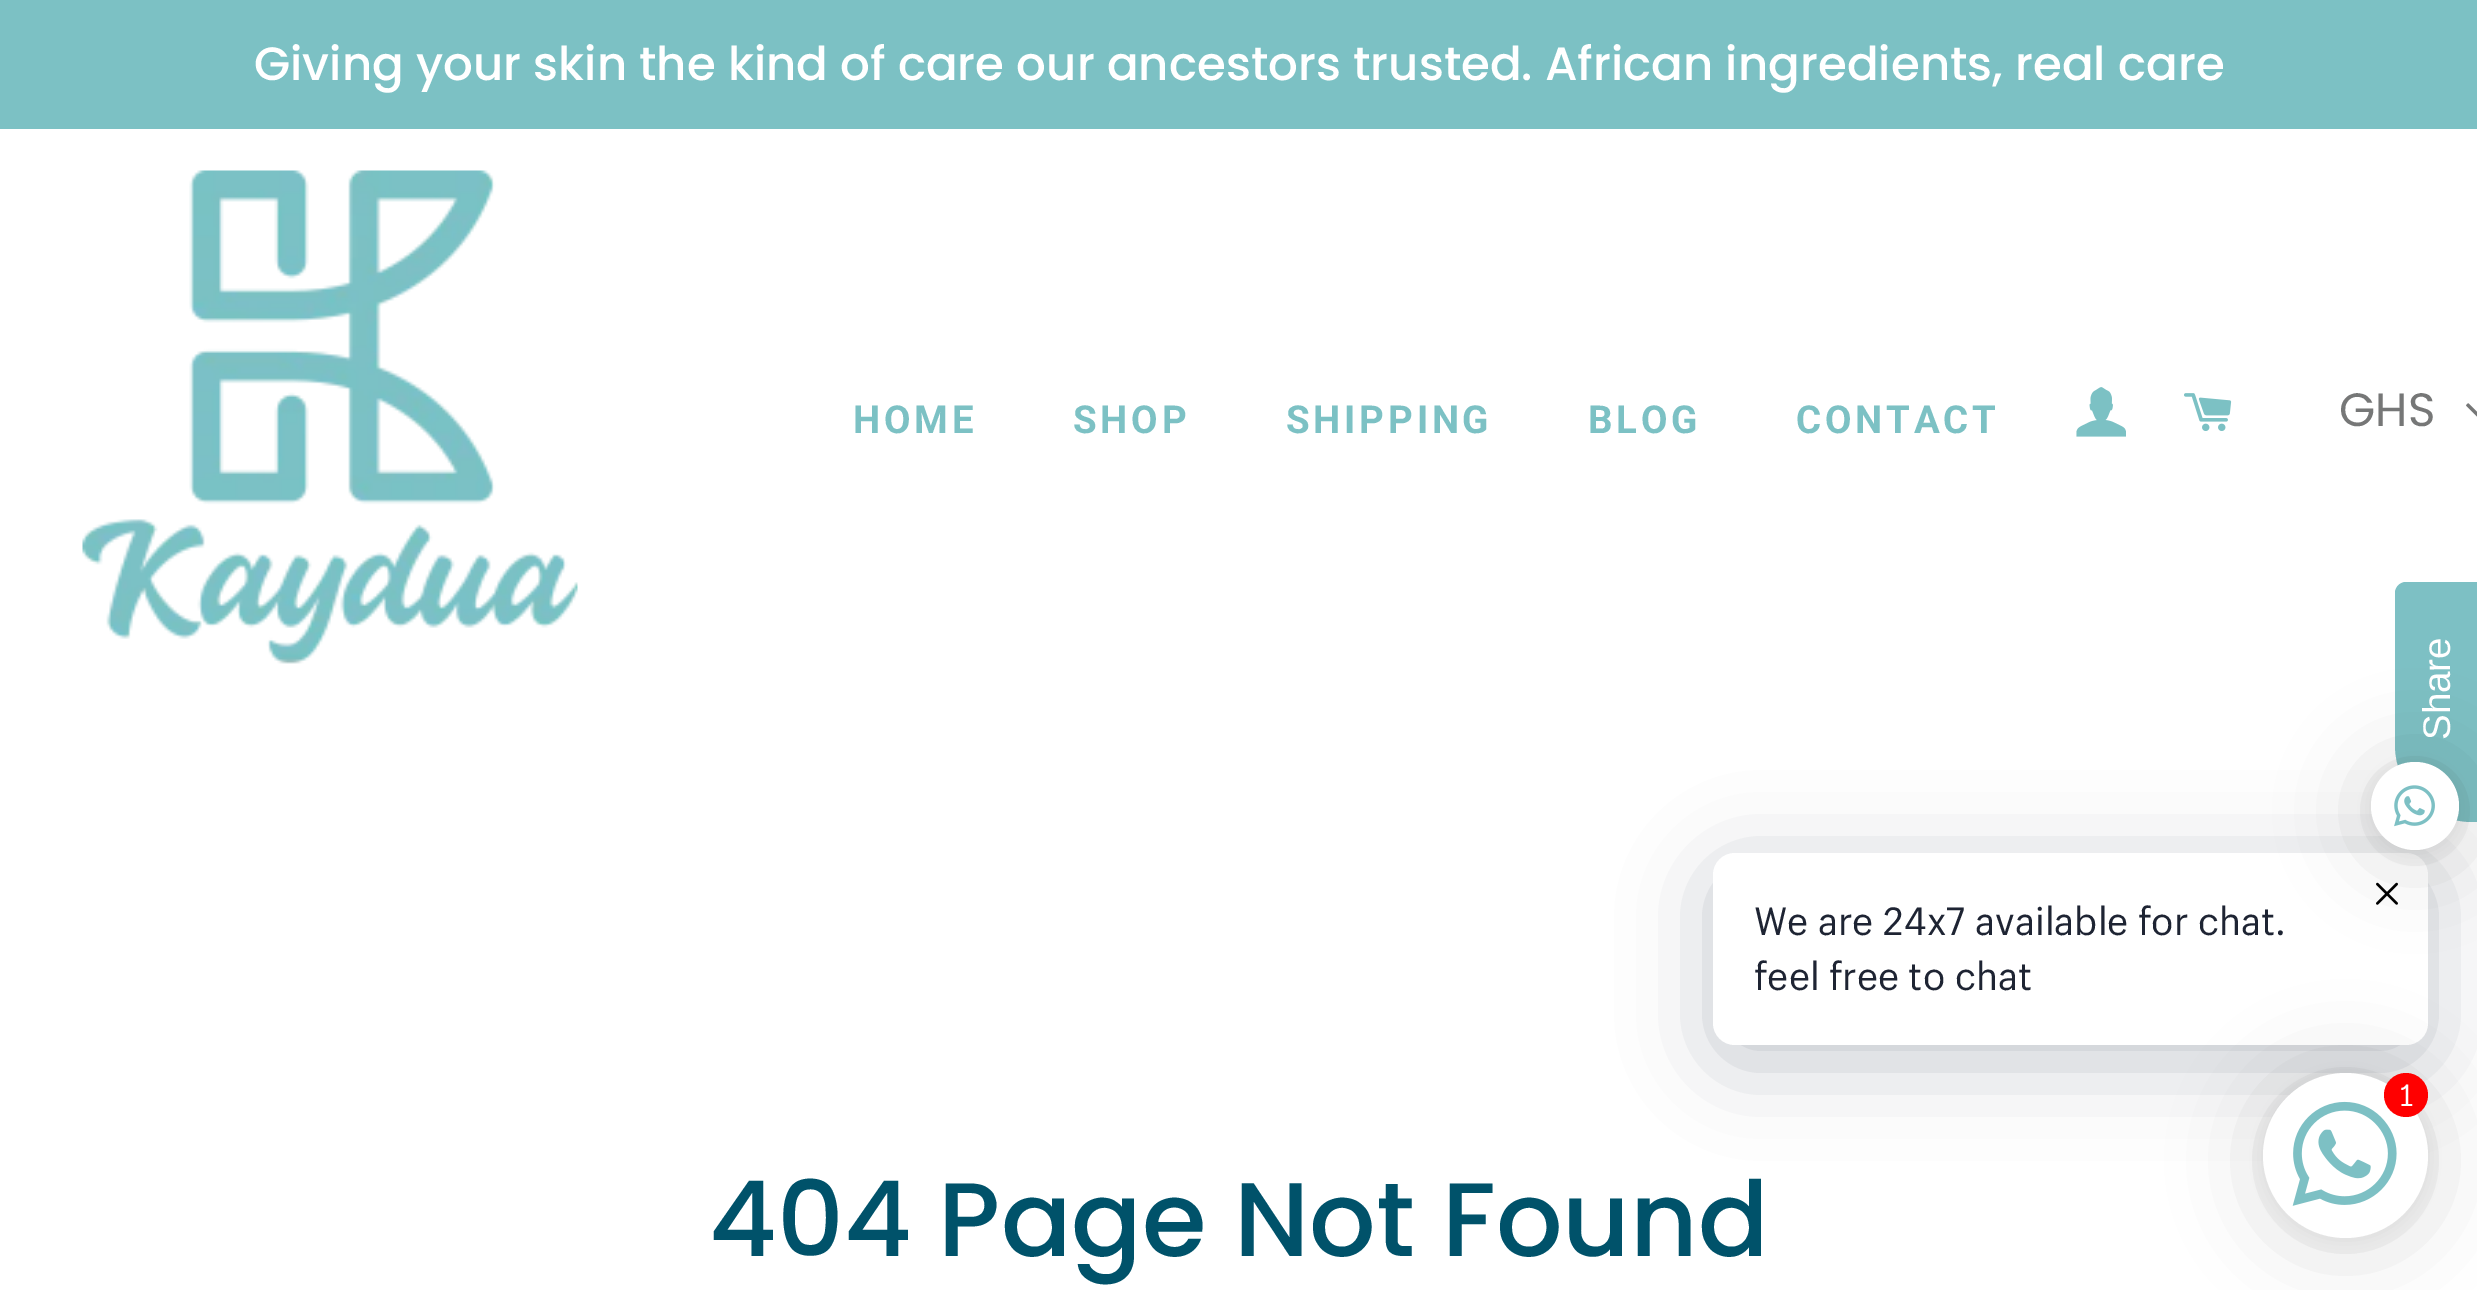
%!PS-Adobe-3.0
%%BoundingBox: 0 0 2477 1290
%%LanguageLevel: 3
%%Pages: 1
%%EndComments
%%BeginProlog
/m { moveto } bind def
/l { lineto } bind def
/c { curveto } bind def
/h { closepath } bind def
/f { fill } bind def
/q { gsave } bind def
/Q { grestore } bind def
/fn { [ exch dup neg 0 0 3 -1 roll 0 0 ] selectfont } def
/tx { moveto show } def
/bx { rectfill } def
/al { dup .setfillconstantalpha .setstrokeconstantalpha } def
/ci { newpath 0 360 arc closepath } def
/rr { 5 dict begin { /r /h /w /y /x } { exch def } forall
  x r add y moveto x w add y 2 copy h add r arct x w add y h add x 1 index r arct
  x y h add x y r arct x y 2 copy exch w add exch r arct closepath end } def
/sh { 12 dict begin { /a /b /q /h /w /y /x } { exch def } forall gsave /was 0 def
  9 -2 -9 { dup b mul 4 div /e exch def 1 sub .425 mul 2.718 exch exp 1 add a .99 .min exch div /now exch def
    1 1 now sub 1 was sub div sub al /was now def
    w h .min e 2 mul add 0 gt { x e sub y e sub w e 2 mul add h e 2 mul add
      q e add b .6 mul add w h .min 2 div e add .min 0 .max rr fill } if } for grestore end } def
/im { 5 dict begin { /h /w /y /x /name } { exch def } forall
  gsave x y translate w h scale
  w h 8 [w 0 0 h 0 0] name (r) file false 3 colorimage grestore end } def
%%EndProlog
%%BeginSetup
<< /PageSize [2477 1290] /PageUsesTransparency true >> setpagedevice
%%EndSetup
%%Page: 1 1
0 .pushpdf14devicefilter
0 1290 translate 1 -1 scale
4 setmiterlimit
1 setgray
0 0 2477 1290 bx
0.486 0.757 0.769 setrgbcolor
0 0 2477 129 bx
/Poppins-Medium 46.75 fn
1 setgray
(Giving your skin the kind of care our ancestors trusted. African ingredients, real care) 254 80 tx
(image0.raw) 82 170 496 494 im
/Roboto-Bold 38.5 fn
0.486 0.757 0.769 setrgbcolor
853 433 m 3.75 0 (HOME) ashow
1073 433 m 3.75 0 (SHOP) ashow
1286 433 m 3.75 0 (SHIPPING) ashow
1588 433 m 3.75 0 (BLOG) ashow
1796 433 m 3.75 0 (CONTACT) ashow
(image1.raw) 2076 387 50 50 im
(image2.raw) 2184 393 48 38 im
/Poppins-Regular 46.75 fn
0.463 0.467 0.467 setrgbcolor
(GHS) 2339 426 tx
(image3.raw) 2466 403 11 14 im
0 0.071 0.18 setrgbcolor
1713 869 715 193 22 44 0.24 sh
0.49 0.753 0.769 setrgbcolor
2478 582 m 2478 822 l 2472 822 l 2430 822 2395 788 2395 745 c 2395 593 l 2395 587 2400 582 2406 582 c h f
1 setgray
1713 853 715 192 22 rr f
(image5.raw) 2376 882 22 23 im
0 setgray
2371 767 88 88 44 44 0.16 sh
2371 765 88 88 44 8 0.06 sh
1 setgray
2415 806 44 ci f
(image4.raw) 2394 785 41 42 im
/LiberationSans-Regular 38.5 fn
q 2450 740 translate -90 rotate 0 0 m (Share) show Q
/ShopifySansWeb-Regular 38.5 fn
0.118 0.141 0.2 setrgbcolor
(We are 24x7 available for chat.) 1754 935 tx
(feel free to chat) 1754 990 tx
0 setgray
2263 1078 165 165 82.5 44 0.16 sh
2263 1075 165 165 82.5 8 0.06 sh
1 setgray
2345.5 1155.5 82.5 ci f
(image6.raw) 2292 1101 105 105 im
1 0 0 setrgbcolor
2406 1095 22 ci f
/ShopifySansWeb-Regular 30 fn
1 setgray
(1) 2400 1106 tx
/Poppins-Medium 104.5 fn
0 0.322 0.416 setrgbcolor
(404 Page Not Found) 709 1256 tx
.poppdf14devicefilter showpage
%%EOF
